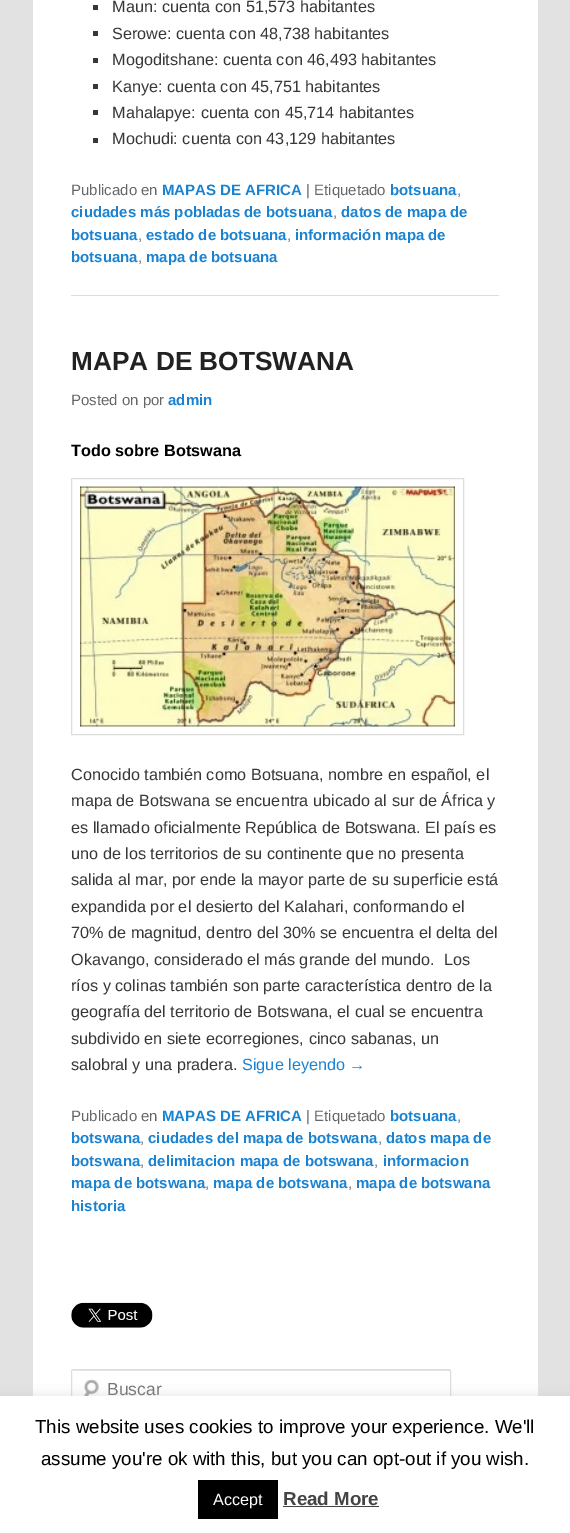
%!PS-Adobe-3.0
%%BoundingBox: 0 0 570 1533
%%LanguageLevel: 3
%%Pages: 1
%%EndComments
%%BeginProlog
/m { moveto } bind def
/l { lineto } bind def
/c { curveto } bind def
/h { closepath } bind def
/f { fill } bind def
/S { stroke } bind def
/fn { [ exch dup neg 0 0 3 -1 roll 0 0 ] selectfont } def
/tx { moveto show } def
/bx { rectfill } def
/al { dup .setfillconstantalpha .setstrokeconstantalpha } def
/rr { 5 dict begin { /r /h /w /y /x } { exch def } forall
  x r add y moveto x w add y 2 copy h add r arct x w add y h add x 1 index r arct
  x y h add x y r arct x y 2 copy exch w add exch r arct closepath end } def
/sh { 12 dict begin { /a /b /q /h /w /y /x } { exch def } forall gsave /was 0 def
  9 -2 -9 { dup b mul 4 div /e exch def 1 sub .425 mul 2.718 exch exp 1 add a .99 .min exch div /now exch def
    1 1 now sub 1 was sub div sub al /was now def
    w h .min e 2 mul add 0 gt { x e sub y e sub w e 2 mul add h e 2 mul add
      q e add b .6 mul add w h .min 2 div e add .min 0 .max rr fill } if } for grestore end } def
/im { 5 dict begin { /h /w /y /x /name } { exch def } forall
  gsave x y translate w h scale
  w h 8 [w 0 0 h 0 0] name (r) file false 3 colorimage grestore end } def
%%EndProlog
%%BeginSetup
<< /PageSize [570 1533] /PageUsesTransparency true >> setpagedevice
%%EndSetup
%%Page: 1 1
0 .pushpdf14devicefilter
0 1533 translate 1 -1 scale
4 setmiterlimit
0.886 setgray
0 0 570 1533 bx
1 setgray
33 0 505 1396 bx
0.867 setgray
71 295 428 1 bx
0.216 setgray
93 5 5 5 bx
/LiberationSans-Regular 16.25 fn
(Maun: cuenta con 51,573 habitantes) 112 12 tx
93 31 5 5 bx
(Serowe: cuenta con 48,738 habitantes) 112 39 tx
93 58 5 5 bx
(Mogoditshane: cuenta con 46,493 habitantes) 112 65 tx
93 84 5 5 bx
(Kanye: cuenta con 45,751 habitantes) 112 92 tx
93 110 5 5 bx
(Mahalapye: cuenta con 45,714 habitantes) 112 118 tx
93 138 5 5 bx
(Mochudi: cuenta con 43,129 habitantes) 112 144 tx
/LiberationSans-Regular 15 fn
0.4 setgray
(Publicado en) 71 195 tx
/LiberationSans-Bold 15 fn
0.098 0.51 0.82 setrgbcolor
(MAPAS DE AFRICA) 162 195 tx
/LiberationSans-Regular 15 fn
0.4 setgray
(| Etiquetado) 306 195 tx
/LiberationSans-Bold 15 fn
0.098 0.51 0.82 setrgbcolor
(botsuana) 390 195 tx
/LiberationSans-Regular 15 fn
0.4 setgray
(,) 457 195 tx
/LiberationSans-Bold 15 fn
0.098 0.51 0.82 setrgbcolor
(ciudades más pobladas de botsuana) 71 217 tx
/LiberationSans-Regular 15 fn
0.4 setgray
(,) 333 217 tx
/LiberationSans-Bold 15 fn
0.098 0.51 0.82 setrgbcolor
(datos de mapa de) 341 217 tx
(botsuana) 71 240 tx
/LiberationSans-Regular 15 fn
0.4 setgray
(,) 138 240 tx
/LiberationSans-Bold 15 fn
0.098 0.51 0.82 setrgbcolor
(estado de botsuana) 146 240 tx
/LiberationSans-Regular 15 fn
0.4 setgray
(,) 287 240 tx
/LiberationSans-Bold 15 fn
0.098 0.51 0.82 setrgbcolor
(información mapa de) 295 240 tx
(botsuana) 71 262 tx
/LiberationSans-Regular 15 fn
0.4 setgray
(,) 138 262 tx
/LiberationSans-Bold 15 fn
0.098 0.51 0.82 setrgbcolor
(mapa de botsuana) 146 262 tx
/LiberationSans-Bold 26.25 fn
0.133 setgray
(MAPA DE BOTSWANA) 71 370 tx
/LiberationSans-Regular 15 fn
0.4 setgray
(Posted on por) 71 405 tx
/LiberationSans-Bold 15 fn
0.098 0.51 0.82 setrgbcolor
(admin) 168 405 tx
/LiberationSans-Bold 16.25 fn
0 setgray
(Todo sobre Botswana) 71 456 tx
0.867 setgray
71.5 478.5 392 256 rectstroke
(image0.raw) 80 486 375 241 im
/LiberationSans-Regular 16.25 fn
0.216 setgray
(Conocido también como Botsuana, nombre en español, el) 71 780 tx
(mapa de Botswana se encuentra ubicado al sur de África y) 71 806 tx
(es llamado oficialmente República de Botswana. El país es) 71 833 tx
(uno de los territorios de su continente que no presenta) 71 859 tx
(salida al mar, por ende la mayor parte de su superficie está) 71 885 tx
(expandida por el desierto del Kalahari, conformando el) 71 912 tx
(70% de magnitud, dentro del 30% se encuentra el delta del) 71 938 tx
(Okavango, considerado el más grande del mundo.  Los) 71 965 tx
(ríos y colinas también son parte característica dentro de la) 71 991 tx
(geografía del territorio de Botswana, el cual se encuentra) 71 1017 tx
(subdivido en siete ecorregiones, cinco sabanas, un) 71 1044 tx
(salobral y una pradera.) 71 1070 tx
0.098 0.51 0.82 setrgbcolor
(Sigue leyendo →) 242 1070 tx
/LiberationSans-Regular 15 fn
0.4 setgray
(Publicado en) 71 1121 tx
/LiberationSans-Bold 15 fn
0.098 0.51 0.82 setrgbcolor
(MAPAS DE AFRICA) 162 1121 tx
/LiberationSans-Regular 15 fn
0.4 setgray
(| Etiquetado) 306 1121 tx
/LiberationSans-Bold 15 fn
0.098 0.51 0.82 setrgbcolor
(botsuana) 390 1121 tx
/LiberationSans-Regular 15 fn
0.4 setgray
(,) 457 1121 tx
/LiberationSans-Bold 15 fn
0.098 0.51 0.82 setrgbcolor
(botswana) 71 1143 tx
/LiberationSans-Regular 15 fn
0.4 setgray
(,) 140 1143 tx
/LiberationSans-Bold 15 fn
0.098 0.51 0.82 setrgbcolor
(ciudades del mapa de botswana) 148 1143 tx
/LiberationSans-Regular 15 fn
0.4 setgray
(,) 378 1143 tx
/LiberationSans-Bold 15 fn
0.098 0.51 0.82 setrgbcolor
(datos mapa de) 386 1143 tx
(botswana) 71 1166 tx
/LiberationSans-Regular 15 fn
0.4 setgray
(,) 140 1166 tx
/LiberationSans-Bold 15 fn
0.098 0.51 0.82 setrgbcolor
(delimitacion mapa de botswana) 148 1166 tx
/LiberationSans-Regular 15 fn
0.4 setgray
(,) 374 1166 tx
/LiberationSans-Bold 15 fn
0.098 0.51 0.82 setrgbcolor
(informacion) 383 1166 tx
(mapa de botswana) 71 1188 tx
/LiberationSans-Regular 15 fn
0.4 setgray
(,) 205 1188 tx
/LiberationSans-Bold 15 fn
0.098 0.51 0.82 setrgbcolor
(mapa de botswana) 213 1188 tx
/LiberationSans-Regular 15 fn
0.4 setgray
(,) 348 1188 tx
/LiberationSans-Bold 15 fn
0.098 0.51 0.82 setrgbcolor
(mapa de botswana) 356 1188 tx
(historia) 71 1211 tx
(image1.raw) 71 1302 82 26 im
(image2.raw) 83 1379 16 17 im
0.902 setgray
74 1371 m 449 1371 l 450 1372 l 450 1371 450 1370 449 1370 c 74 1370 l 73 1370 73 1371 73 1371 c h f
0.867 setgray
71.5 1369.5 379 39 2 rr S
/LiberationSans-Regular 17.5 fn
0.459 setgray
(Buscar) 107 1395 tx
0.675 0.671 0.671 setrgbcolor
0 1395 570 138 0 6 0.3 sh
1 setgray
0 1396 570 137 bx
/LiberationSans-Regular 18.75 fn
0 setgray
(This website uses cookies to improve your experience. We'll) 35 1433 tx
(assume you're ok with this, but you can opt-out if you wish.) 41 1465 tx
198 1480 80 39 bx
/LiberationSans-Regular 16.25 fn
1 setgray
(Accept) 213 1505 tx
/LiberationSans-Bold 18.75 fn
0.267 setgray
(Read More) 283 1505 tx
283 1506 96 1 bx
.poppdf14devicefilter showpage
%%EOF
